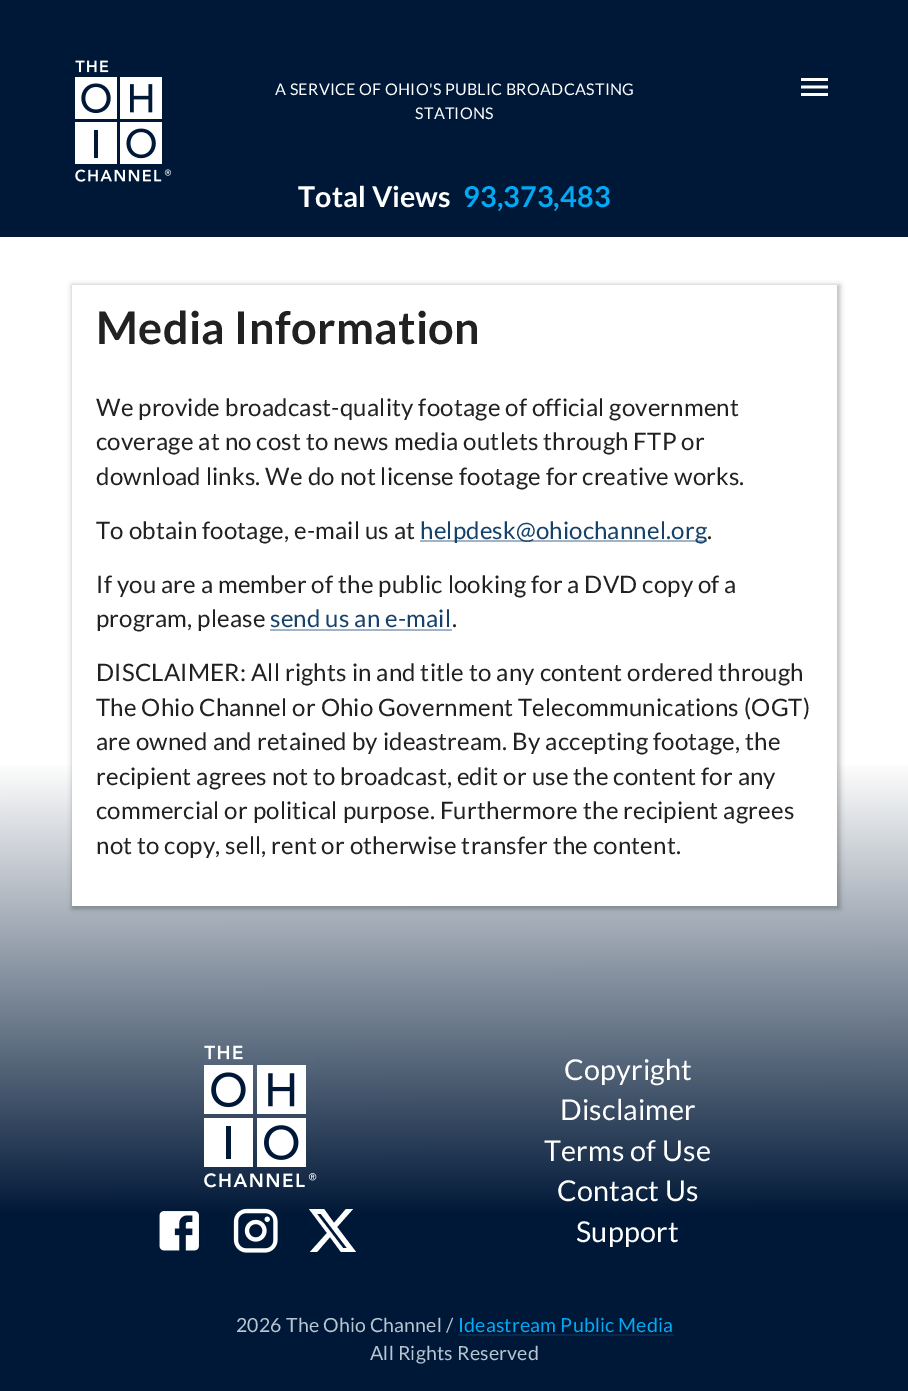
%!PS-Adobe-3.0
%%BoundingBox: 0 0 908 1391
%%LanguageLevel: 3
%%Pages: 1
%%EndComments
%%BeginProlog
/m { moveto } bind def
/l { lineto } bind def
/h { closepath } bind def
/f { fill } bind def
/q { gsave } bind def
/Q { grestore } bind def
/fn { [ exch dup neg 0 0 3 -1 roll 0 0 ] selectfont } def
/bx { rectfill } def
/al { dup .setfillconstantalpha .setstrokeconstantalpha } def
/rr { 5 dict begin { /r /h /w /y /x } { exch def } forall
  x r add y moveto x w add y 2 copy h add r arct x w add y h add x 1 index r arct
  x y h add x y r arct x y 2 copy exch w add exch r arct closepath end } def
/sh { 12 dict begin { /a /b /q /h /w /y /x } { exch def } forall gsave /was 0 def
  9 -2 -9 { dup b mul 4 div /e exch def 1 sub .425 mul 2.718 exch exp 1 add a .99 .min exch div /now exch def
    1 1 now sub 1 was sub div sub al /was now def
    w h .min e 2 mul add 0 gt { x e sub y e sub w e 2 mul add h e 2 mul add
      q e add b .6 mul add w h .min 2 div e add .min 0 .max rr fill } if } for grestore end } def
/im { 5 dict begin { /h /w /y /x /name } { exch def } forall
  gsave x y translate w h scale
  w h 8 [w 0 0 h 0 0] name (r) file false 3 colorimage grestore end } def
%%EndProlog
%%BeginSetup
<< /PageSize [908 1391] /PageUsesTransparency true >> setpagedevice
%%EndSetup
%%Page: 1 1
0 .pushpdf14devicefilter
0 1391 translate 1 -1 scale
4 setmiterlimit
1 setgray
0 0 908 1391 bx
0 0.094 0.216 setrgbcolor
0 0 908 237 bx
(image0.raw) 75 60 97 122 im
/Lato-Regular 16 fn
1 setgray
275 95 m 0.3 0 (A SERVICE OF OHIO'S PUBLIC BROADCASTING) ashow
415 119 m 0.3 0 (STATIONS) ashow
/Lato-Bold 28.75 fn
298 207 m 0.1 0 (Total Views) ashow
0.012 0.663 0.957 setrgbcolor
463 207 m 0.1 0 (93,373,483) ashow
(image1.raw) 801 78 27 18 im
q 0 765 m 908 765 l 908 1391 l 0 1391 l h clip newpath
<< /ShadingType 2 /ColorSpace /DeviceRGB /Coords [454 285 455 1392] /Extend [true true] /Function << /FunctionType 3 /Domain [0 1] /Functions [<< /FunctionType 2 /Domain [0 1] /C0 [1 1 1] /C1 [1 1 1] /N 1 >> << /FunctionType 2 /Domain [0 1] /C0 [1 1 1] /C1 [0 0.094 0.216] /N 1 >> << /FunctionType 2 /Domain [0 1] /C0 [0 0.094 0.216] /C1 [0 0.094 0.216] /N 1 >>] /Bounds [0.43 0.84] /Encode [0 1 0 1 0 1] >> >> shfill Q
0 setgray
72 285 768 624 0 2.5 0.25 sh
1 setgray
72 285 765 621 bx
/Lato-Bold 45 fn
0.129 setgray
96 344 m 0.4 0 (Media Information) ashow
/Lato-Regular 24 fn
96 416 m 0.18 0 (We provide broadcast-quality footage of official government) ashow
96 450 m 0.18 0 (coverage at no cost to news media outlets through FTP or) ashow
96 485 m 0.18 0 (download links. We do not license footage for creative works.) ashow
96 539 m 0.18 0 (To obtain footage, e-mail us at) ashow
0.631 0.702 0.769 setrgbcolor
420 540 287 2 bx
0.082 0.255 0.42 setrgbcolor
420 539 m 0.18 0 (helpdesk@ohiochannel.org) ashow
0.129 setgray
707 539 m 0.18 0 (.) ashow
96 593 m 0.18 0 (If you are a member of the public looking for a DVD copy of a) ashow
96 627 m 0.18 0 (program, please) ashow
0.082 0.255 0.42 setrgbcolor
270 627 m 0.18 0 (send us an e-mail) ashow
0.129 setgray
452 627 m 0.18 0 (.) ashow
0.631 0.702 0.769 setrgbcolor
270 629 182 2 bx
0.129 setgray
96 681 m 0.18 0 (DISCLAIMER: All rights in and title to any content ordered through) ashow
96 716 m 0.18 0 (The Ohio Channel or Ohio Government Telecommunications \(OGT\)) ashow
96 750 m 0.18 0 (are owned and retained by ideastream. By accepting footage, the) ashow
96 785 m 0.18 0 (recipient agrees not to broadcast, edit or use the content for any) ashow
96 819 m 0.18 0 (commercial or political purpose. Furthermore the recipient agrees) ashow
96 854 m 0.18 0 (not to copy, sell, rent or otherwise transfer the content.) ashow
(image2.raw) 204 1045 113 143 im
(image3.raw) 159 1211 40 40 im
(image4.raw) 233 1208 45 45 im
1 setgray
346 1209 m 353 1209 l 337 1227 l 356 1252 l 341 1252 l 330 1237 l 317 1252 l 310 1252 l 327 1233 l 309 1209 l 324 1209 l 334 1223 l h 343 1248 m 347 1248 l 321 1214 l 317 1214 l h f
/Lato-Regular 28.75 fn
564 1080 m 0.18 0 (Copyright) ashow
560 1120 m 0.18 0 (Disclaimer) ashow
544 1161 m 0.18 0 (Terms of Use) ashow
557 1201 m 0.18 0 (Contact Us) ashow
576 1242 m 0.18 0 (Support) ashow
/Lato-Regular 19.5 fn
0.722 0.776 0.824 setrgbcolor
236 1332 m 0.18 0 (2026 The Ohio Channel /) ashow
0.012 0.663 0.957 setrgbcolor
458 1332 m 0.18 0 (Ideastream Public Media) ashow
0.031 0.157 0.298 setrgbcolor
458 1334 216 2 bx
0.722 0.776 0.824 setrgbcolor
370 1360 m 0.18 0 (All Rights Reserved) ashow
.poppdf14devicefilter showpage
%%EOF
